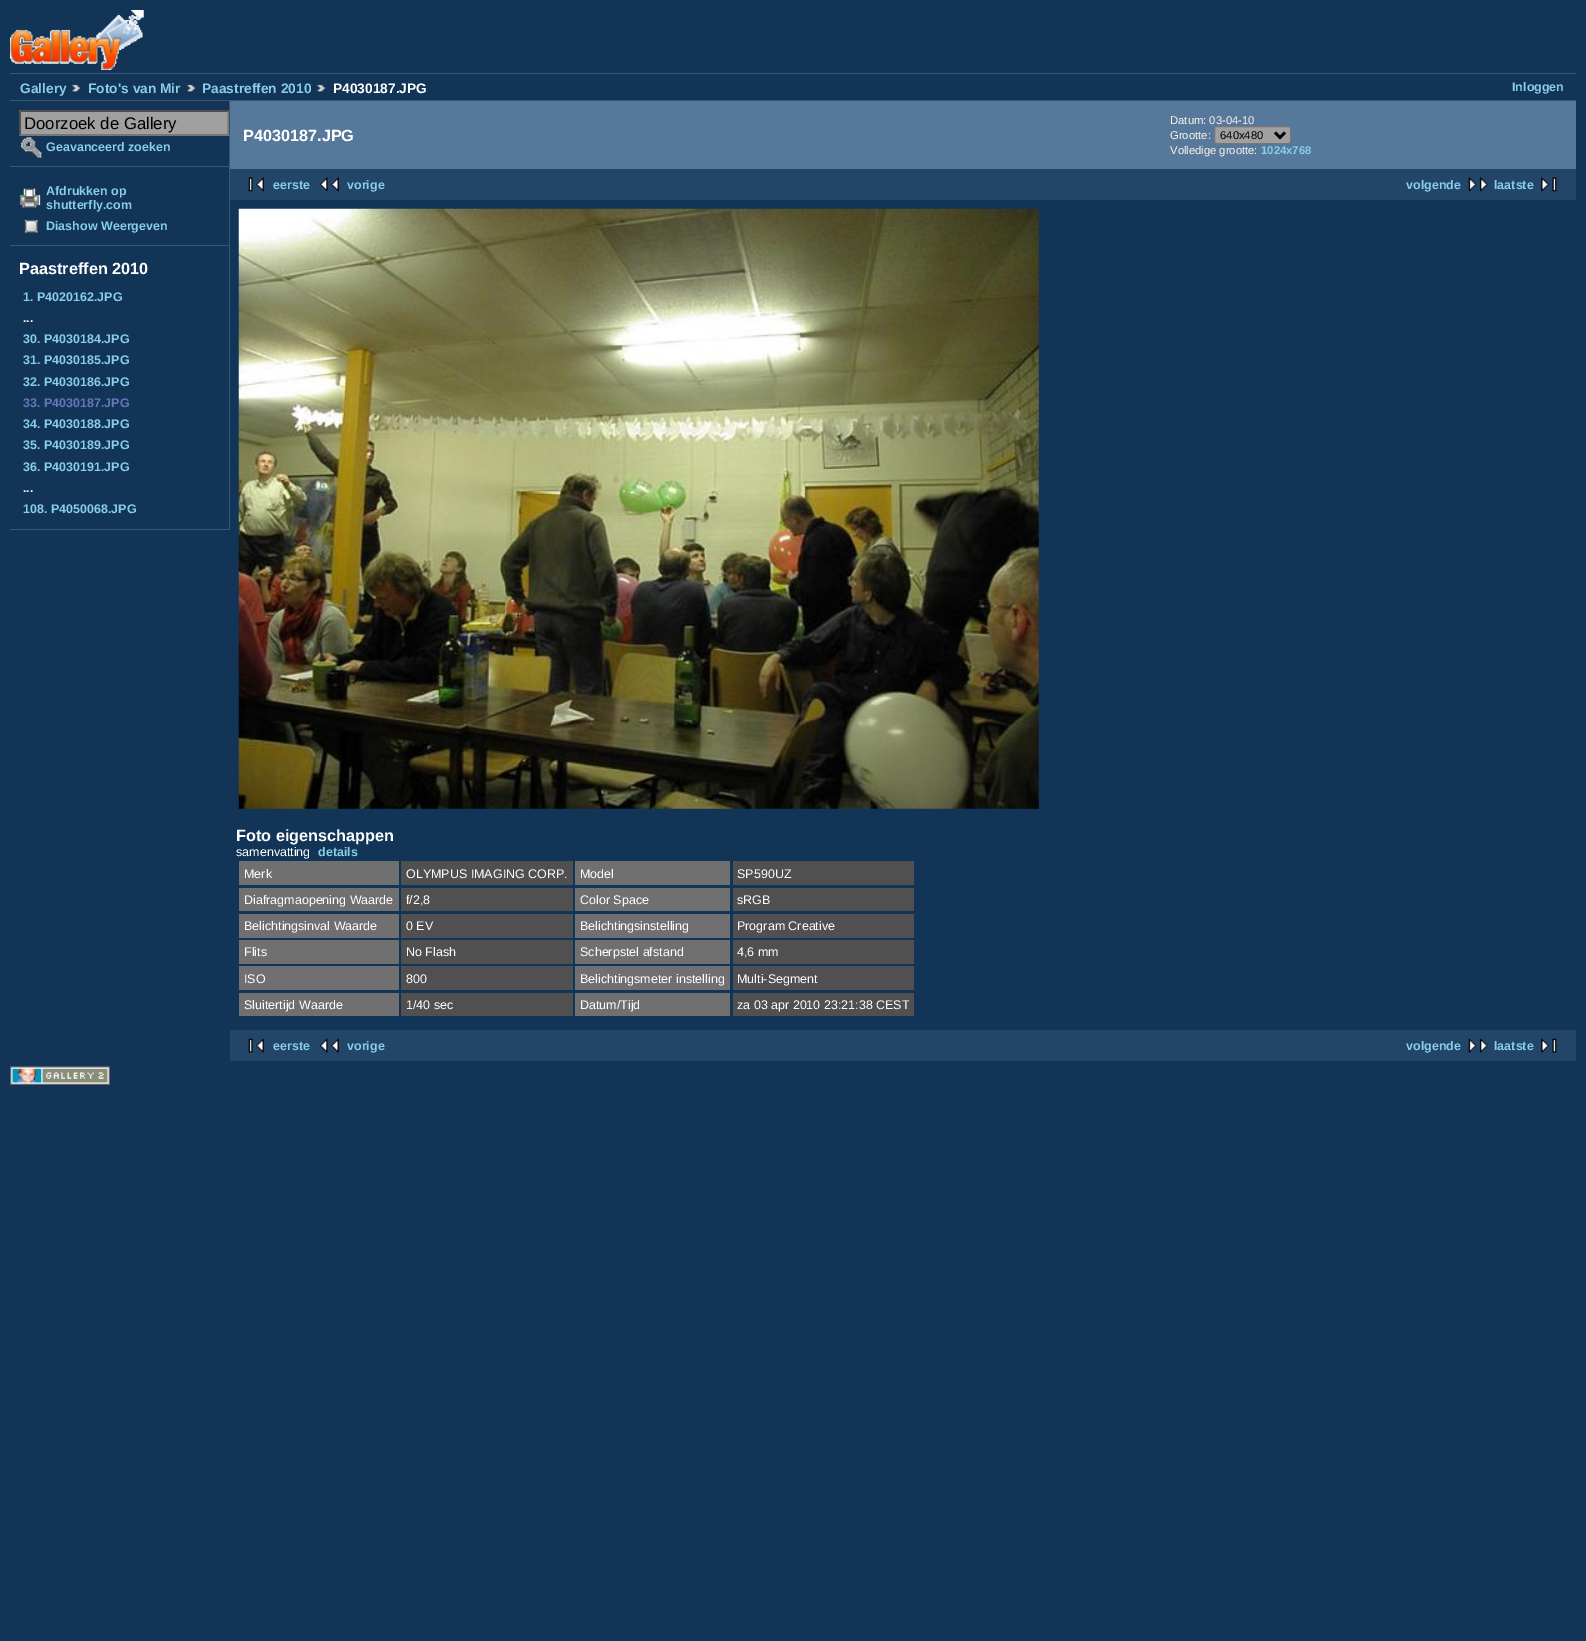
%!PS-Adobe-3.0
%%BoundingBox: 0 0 1586 1641
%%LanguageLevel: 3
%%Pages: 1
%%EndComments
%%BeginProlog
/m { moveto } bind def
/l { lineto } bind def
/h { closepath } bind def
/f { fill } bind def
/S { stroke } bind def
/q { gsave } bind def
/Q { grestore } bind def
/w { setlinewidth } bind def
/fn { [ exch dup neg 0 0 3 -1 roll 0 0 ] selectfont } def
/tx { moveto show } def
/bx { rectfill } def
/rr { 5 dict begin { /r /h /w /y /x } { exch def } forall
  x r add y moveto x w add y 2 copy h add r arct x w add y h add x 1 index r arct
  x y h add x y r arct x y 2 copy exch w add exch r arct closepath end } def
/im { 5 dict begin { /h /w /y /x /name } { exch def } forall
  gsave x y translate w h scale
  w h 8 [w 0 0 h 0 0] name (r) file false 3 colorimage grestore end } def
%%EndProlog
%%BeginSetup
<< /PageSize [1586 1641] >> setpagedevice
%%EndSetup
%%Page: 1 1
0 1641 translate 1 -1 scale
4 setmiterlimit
0.071 0.204 0.337 setrgbcolor
0 0 1586 1641 bx
(image0.raw) 10 10 134 60 im
0.204 0.337 0.471 setrgbcolor
10 73 1566 1 bx
10 100 1566 1 bx
/LiberationSans-Bold 13.75 fn
0.529 0.808 0.922 setrgbcolor
(Gallery) 20 93 tx
(image1.raw) 72 84 9 8 im
(Foto's van Mir) 88 93 tx
(image1.raw) 187 84 9 8 im
(Paastreffen 2010) 202 93 tx
(image1.raw) 317 84 9 8 im
1 setgray
(P4030187.JPG) 333 93 tx
/LiberationSans-Bold 12.5 fn
0.529 0.808 0.922 setrgbcolor
(Inloggen) 1512 91 tx
0.204 0.337 0.471 setrgbcolor
229 101 1 429 bx
10 166 219 1 bx
0.627 setgray
19 110 210 26 bx
0.31 setgray
19 110 m 230 110 l 228 112 l 21 112 l h f
q
10 101 219 429 rectclip
0.463 setgray
230 110 m 230 136 l 227.5 134 l 227.5 112.5 l h f
Q
0.463 setgray
230 136 m 19 136 l 21 134 l 228 134 l h f
0.31 setgray
19 136 m 19 110 l 21 112.5 l 21 134 l h f
/LiberationSans-Regular 16.75 fn
0 setgray
(Doorzoek de Gallery) 24 129 tx
(image2.raw) 21 137 21 21 im
/LiberationSans-Bold 12.5 fn
0.529 0.808 0.922 setrgbcolor
(Geavanceerd zoeken) 46 151 tx
0.204 0.337 0.471 setrgbcolor
10 245 219 1 bx
(image3.raw) 19 188 22 20 im
0.529 0.808 0.922 setrgbcolor
(Afdrukken op) 46 195 tx
(shutterfly.com) 46 209 tx
(image4.raw) 24 219 14 14 im
(Diashow Weergeven) 46 230 tx
0.204 0.337 0.471 setrgbcolor
10 529 219 1 bx
/LiberationSans-Bold 16.25 fn
1 setgray
(Paastreffen 2010) 19 274 tx
/LiberationSans-Bold 12.5 fn
0.529 0.808 0.922 setrgbcolor
(1. P4020162.JPG) 23 301 tx
1 setgray
(...) 23 322 tx
0.529 0.808 0.922 setrgbcolor
(30. P4030184.JPG) 23 343 tx
(31. P4030185.JPG) 23 364 tx
(32. P4030186.JPG) 23 386 tx
0.4 0.467 0.733 setrgbcolor
(33. P4030187.JPG) 23 407 tx
0.529 0.808 0.922 setrgbcolor
(34. P4030188.JPG) 23 428 tx
(35. P4030189.JPG) 23 449 tx
(36. P4030191.JPG) 23 471 tx
1 setgray
(...) 23 492 tx
0.529 0.808 0.922 setrgbcolor
(108. P4050068.JPG) 23 513 tx
0.337 0.471 0.604 setrgbcolor
230 101 1346 68 bx
/LiberationSans-Bold 16.25 fn
1 setgray
(P4030187.JPG) 243 141 tx
/LiberationSans-Regular 11.25 fn
1 0.961 0.933 setrgbcolor
(Datum: 03-04-10) 1170 124 tx
(Grootte:) 1170 139 tx
0.627 setgray
1214.5 126.5 76 17 2 rr q f Q
0.463 setgray
S
0 setgray
2.5 w
1275 132.5 m 1280 137.5 l 1285 132.5 l S
(640x480) 1220 139 tx
1 0.961 0.933 setrgbcolor
(Volledige grootte:) 1170 154 tx
/LiberationSans-Bold 11.25 fn
0.529 0.808 0.922 setrgbcolor
(1024x768) 1261 154 tx
0.137 0.271 0.404 setrgbcolor
230 169 1346 31 bx
(image5.raw) 248 177 16 15 im
/LiberationSans-Bold 12.5 fn
0.529 0.808 0.922 setrgbcolor
(eerste) 273 189 tx
(image6.raw) 319 177 20 15 im
(vorige) 347 189 tx
(volgende) 1406 189 tx
(image7.raw) 1468 177 20 15 im
(laatste) 1494 189 tx
(image8.raw) 1541 177 16 15 im
(image9.raw) 238 208 801 601 im
/LiberationSans-Bold 16.25 fn
1 setgray
(Foto eigenschappen) 236 841 tx
/LiberationSans-Regular 12.5 fn
(samenvatting) 236 856 tx
/LiberationSans-Bold 12.5 fn
0.529 0.808 0.922 setrgbcolor
(details) 318 856 tx
0.439 setgray
239 861 160 24 bx
/LiberationSans-Regular 12.5 fn
1 setgray
(Merk) 244 878 tx
0.314 setgray
401 861 172 24 bx
1 setgray
(OLYMPUS IMAGING CORP.) 406 878 tx
0.439 setgray
575 861 155 24 bx
1 setgray
(Model) 580 878 tx
0.314 setgray
733 861 181 24 bx
1 setgray
(SP590UZ) 737 878 tx
0.439 setgray
239 888 160 23 bx
1 setgray
(Diafragmaopening Waarde) 244 904 tx
0.314 setgray
401 888 172 23 bx
1 setgray
(f/2,8) 406 904 tx
0.439 setgray
575 888 155 23 bx
1 setgray
(Color Space) 580 904 tx
0.314 setgray
733 888 181 23 bx
1 setgray
(sRGB) 737 904 tx
0.439 setgray
239 914 160 24 bx
1 setgray
(Belichtingsinval Waarde) 244 930 tx
0.314 setgray
401 914 172 24 bx
1 setgray
(0 EV) 406 930 tx
0.439 setgray
575 914 155 24 bx
1 setgray
(Belichtingsinstelling) 580 930 tx
0.314 setgray
733 914 181 24 bx
1 setgray
(Program Creative) 737 930 tx
0.439 setgray
239 940 160 24 bx
1 setgray
(Flits) 244 956 tx
0.314 setgray
401 940 172 24 bx
1 setgray
(No Flash) 406 956 tx
0.439 setgray
575 940 155 24 bx
1 setgray
(Scherpstel afstand) 580 956 tx
0.314 setgray
733 940 181 24 bx
1 setgray
(4,6 mm) 737 956 tx
0.439 setgray
239 966 160 24 bx
1 setgray
(ISO) 244 983 tx
0.314 setgray
401 966 172 24 bx
1 setgray
(800) 406 983 tx
0.439 setgray
575 966 155 24 bx
1 setgray
(Belichtingsmeter instelling) 580 983 tx
0.314 setgray
733 966 181 24 bx
1 setgray
(Multi-Segment) 737 983 tx
0.439 setgray
239 993 160 23 bx
1 setgray
(Sluitertijd Waarde) 244 1009 tx
0.314 setgray
401 993 172 23 bx
1 setgray
(1/40 sec) 406 1009 tx
0.439 setgray
575 993 155 23 bx
1 setgray
(Datum/Tijd) 580 1009 tx
0.314 setgray
733 993 181 23 bx
1 setgray
(za 03 apr 2010 23:21:38 CEST) 737 1009 tx
0.137 0.271 0.404 setrgbcolor
230 1030 1346 31 bx
(image10.raw) 248 1038 16 15 im
/LiberationSans-Bold 12.5 fn
0.529 0.808 0.922 setrgbcolor
(eerste) 273 1050 tx
(image11.raw) 319 1038 20 15 im
(vorige) 347 1050 tx
(volgende) 1406 1050 tx
(image12.raw) 1468 1038 20 15 im
(laatste) 1494 1050 tx
(image13.raw) 1541 1038 16 15 im
(image14.raw) 10 1066 100 19 im
showpage
%%EOF
